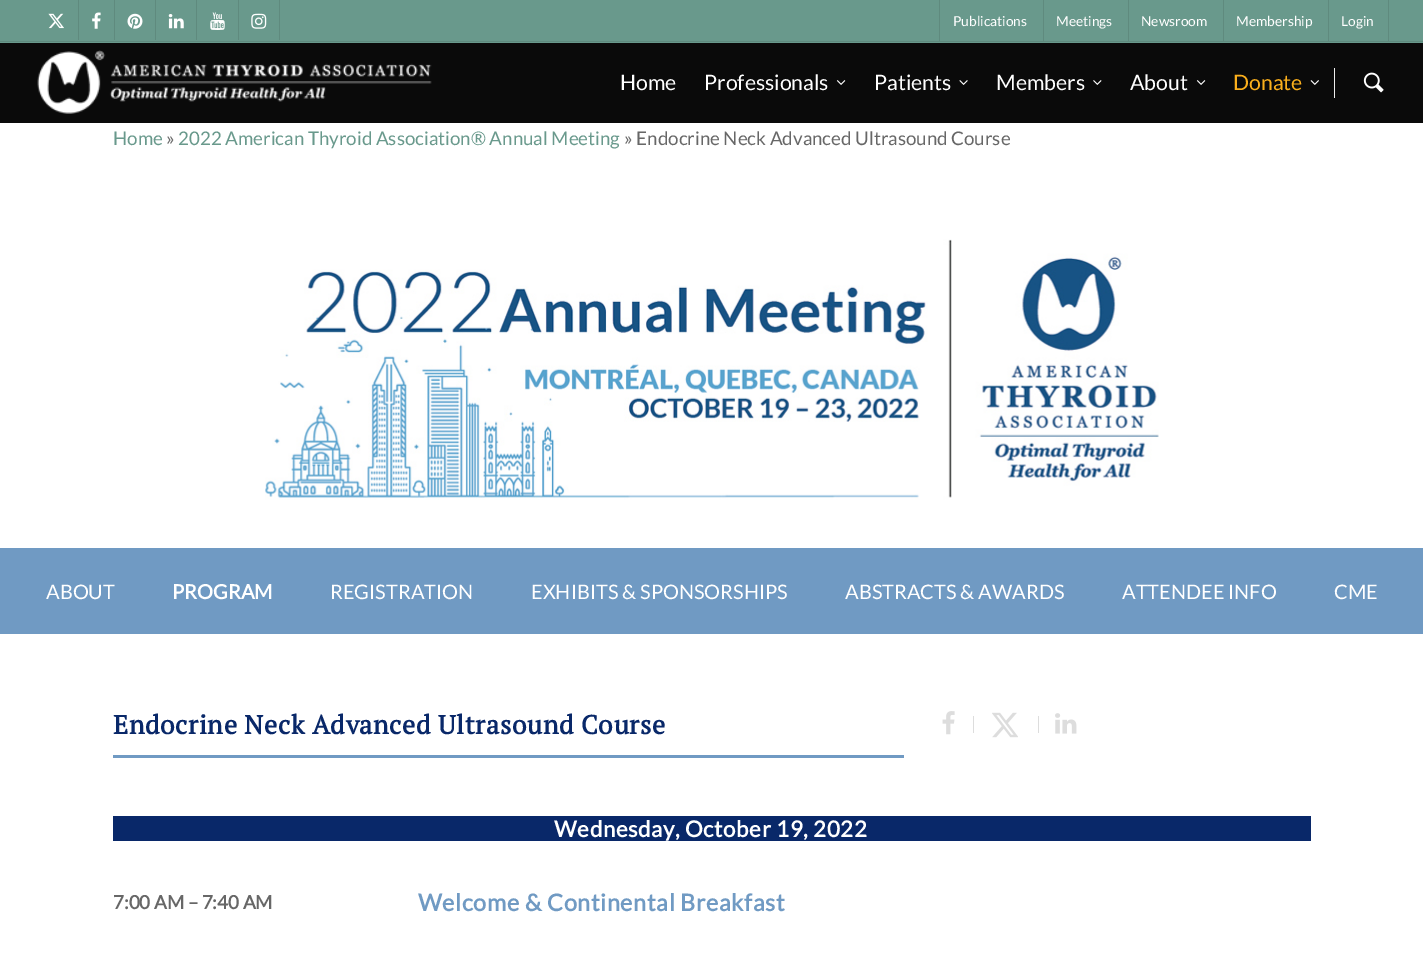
%!PS-Adobe-3.0
%%BoundingBox: 0 0 1423 973
%%LanguageLevel: 3
%%Pages: 1
%%EndComments
%%BeginProlog
/m { moveto } bind def
/fn { [ exch dup neg 0 0 3 -1 roll 0 0 ] selectfont } def
/tx { moveto show } def
/bx { rectfill } def
/im { 5 dict begin { /h /w /y /x /name } { exch def } forall
  gsave x y translate w h scale
  w h 8 [w 0 0 h 0 0] name (r) file false 3 colorimage grestore end } def
%%EndProlog
%%BeginSetup
<< /PageSize [1423 973] >> setpagedevice
%%EndSetup
%%Page: 1 1
0 973 translate 1 -1 scale
4 setmiterlimit
1 setgray
0 0 1423 973 bx
0.412 0.6 0.549 setrgbcolor
0 0 1423 43 bx
0.373 0.541 0.494 setrgbcolor
0 41 1423 1 bx
(image0.raw) 48 13 16 16 im
78 0 1 40 bx
(image1.raw) 92 12 9 17 im
114 0 1 40 bx
(image2.raw) 127 13 16 16 im
155 0 1 40 bx
(image3.raw) 168 14 16 15 im
196 0 1 40 bx
(image4.raw) 210 12 15 18 im
279 0 1 40 bx
238 0 1 40 bx
(image5.raw) 251 13 16 16 im
939 0 1 41 bx
/Lato-Regular 13.75 fn
1 setgray
(Publications) 953 26 tx
0.373 0.541 0.494 setrgbcolor
1043 0 1 41 bx
1 setgray
(Meetings) 1056 26 tx
0.373 0.541 0.494 setrgbcolor
1128 0 1 41 bx
1 setgray
(Newsroom) 1141 26 tx
0.373 0.541 0.494 setrgbcolor
1223 0 1 41 bx
1 setgray
(Membership) 1236 26 tx
0.373 0.541 0.494 setrgbcolor
1388 0 1 41 bx
1328 0 1 41 bx
1 setgray
(Login) 1341 26 tx
0.039 setgray
0 43 1423 80 bx
(image6.raw) 37 50 395 64 im
/Lato-Regular 21.25 fn
1 setgray
(Home) 620 90 tx
(Professionals) 704 90 tx
(image7.raw) 836 80 10 5 im
(Patients) 874 90 tx
(image8.raw) 959 80 9 5 im
(Members) 996 90 tx
(image9.raw) 1093 80 9 5 im
(About) 1130 90 tx
(image7.raw) 1196 80 10 5 im
0.984 0.686 0.11 setrgbcolor
(Donate) 1233 90 tx
(image10.raw) 1310 80 9 5 im
0.933 setgray
1334 68 1 30 bx
(image11.raw) 1363 72 21 21 im
/Lato-Regular 18.75 fn
0.412 0.6 0.549 setrgbcolor
(Home) 113 145 tx
0.404 setgray
(») 166 145 tx
0.412 0.6 0.549 setrgbcolor
(2022 American Thyroid Association® Annual Meeting) 178 145 tx
0.404 setgray
(» Endocrine Neck Advanced Ultrasound Course) 624 145 tx
(image12.raw) 265 239 894 261 im
0.439 0.604 0.765 setrgbcolor
0 548 1423 86 bx
/Lato-Regular 20 fn
1 setgray
(ABOUT) 46 599 tx
/Lato-Bold 20 fn
(PROGRAM) 172 599 tx
/Lato-Regular 20 fn
(REGISTRATION) 330 599 tx
(EXHIBITS & SPONSORSHIPS) 531 599 tx
(ABSTRACTS & AWARDS) 845 599 tx
(ATTENDEE INFO) 1122 599 tx
(CME) 1334 599 tx
/PTSerif-Bold 26.25 fn
0.035 0.157 0.412 setrgbcolor
113 734 m 0.6 0 (Endocrine Neck Advanced Ultrasound Course) ashow
0.439 0.604 0.765 setrgbcolor
113 755 791 3 bx
0.867 setgray
973 716 1 17 bx
(image13.raw) 942 711 13 24 im
1038 716 1 17 bx
(image14.raw) 992 712 26 26 im
(image15.raw) 1055 713 22 21 im
0.035 0.157 0.412 setrgbcolor
113 816 1198 25 bx
/Lato-Bold 22.25 fn
1 setgray
554 837 m 0.6 0 (Wednesday, October 19, 2022) ashow
/Lato-Bold 18.75 fn
0.404 setgray
(7:00 AM – 7:40 AM) 113 909 tx
/Lato-Bold 23.4 fn
0.439 0.604 0.765 setrgbcolor
418 911 m 0.6 0 (Welcome & Continental Breakfast) ashow
showpage
%%EOF
